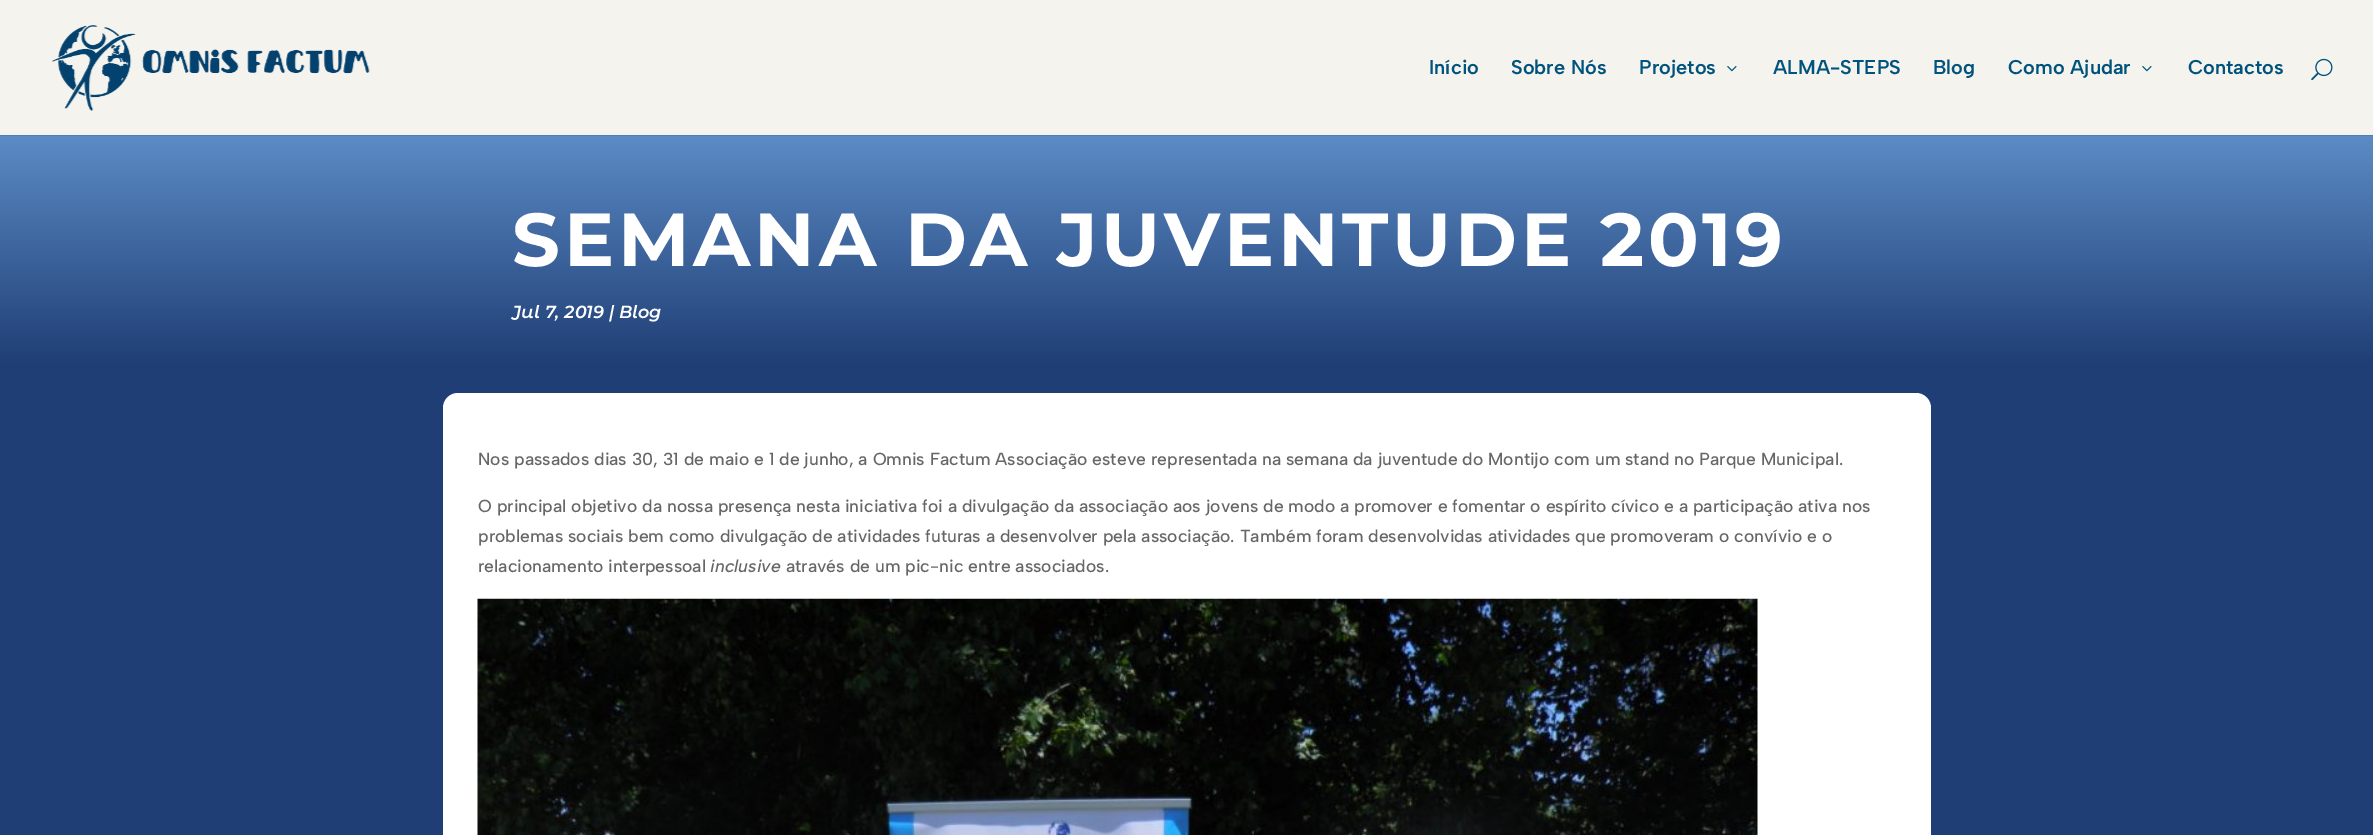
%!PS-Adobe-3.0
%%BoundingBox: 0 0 2373 835
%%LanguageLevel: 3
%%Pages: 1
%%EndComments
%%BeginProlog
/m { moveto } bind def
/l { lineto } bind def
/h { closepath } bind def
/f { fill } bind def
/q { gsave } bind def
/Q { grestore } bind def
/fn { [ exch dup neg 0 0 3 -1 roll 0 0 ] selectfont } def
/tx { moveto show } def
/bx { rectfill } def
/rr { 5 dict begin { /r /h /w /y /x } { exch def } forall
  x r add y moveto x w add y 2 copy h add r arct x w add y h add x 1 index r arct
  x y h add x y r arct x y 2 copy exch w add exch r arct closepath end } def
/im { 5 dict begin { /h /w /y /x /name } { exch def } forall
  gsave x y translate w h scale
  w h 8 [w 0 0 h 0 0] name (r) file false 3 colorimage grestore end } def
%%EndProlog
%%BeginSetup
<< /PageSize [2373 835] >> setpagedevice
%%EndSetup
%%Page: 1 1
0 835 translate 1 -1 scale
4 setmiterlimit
1 setgray
0 0 2373 835 bx
0.325 0.49 0.694 setrgbcolor
0 135 m 0 136 l 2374 136 l 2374 1 l 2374 135 l h f
0.961 0.953 0.933 setrgbcolor
0 0 2373 135 bx
(image0.raw) 52 25 318 86 im
/AlbertSans-SemiBold 20 fn
0 0.325 0.486 setrgbcolor
(Início) 1429 74 tx
(Sobre Nós) 1511 74 tx
(Projetos) 1639 74 tx
(image1.raw) 1727 66 10 6 im
(ALMA-STEPS) 1773 74 tx
(Blog) 1933 74 tx
(Como Ajudar) 2008 74 tx
(image1.raw) 2142 66 10 6 im
(Contactos) 2188 74 tx
(image2.raw) 2311 58 22 23 im
q 0 136 m 2373 136 l 2373 365 l 0 365 l h clip newpath
<< /ShadingType 2 /ColorSpace /DeviceRGB /Coords [1187 134 1187 365] /Extend [true true] /Function << /FunctionType 2 /Domain [0 1] /C0 [0.361 0.549 0.776] /C1 [0.122 0.243 0.459] /N 1 >> >> shfill Q
/Montserrat-Bold 75 fn
1 setgray
512 266 m 3.75 0 (SEMANA DA JUVENTUDE 2019) ashow
/MontserratAlternates-SemiBoldItalic 17.5 fn
(Jul 7, 2019 | Blog) 512 318 tx
0.122 0.243 0.459 setrgbcolor
0 365 2373 470 bx
1 setgray
443 393 1488 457 15 rr f
/AlbertSans-Medium 17.5 fn
0.4 setgray
(Nos passados dias 30, 31 de maio e 1 de junho, a Omnis Factum Associação esteve representada na semana da juventude do Montijo com um stand no Parque Municipal.) 478 465 tx
(O principal objetivo da nossa presença nesta iniciativa foi a divulgação da associação aos jovens de modo a promover e fomentar o espírito cívico e a participação ativa nos) 478 512 tx
(problemas sociais bem como divulgação de atividades futuras a desenvolver pela associação. Também foram desenvolvidas atividades que promoveram o convívio e o) 478 542 tx
(relacionamento interpessoal) 478 572 tx
/AlbertSans-MediumItalic 17.5 fn
(inclusive) 710 572 tx
/AlbertSans-Medium 17.5 fn
(através de um pic-nic entre associados.) 786 572 tx
(image3.raw) 477 598 1281 237 im
showpage
%%EOF
